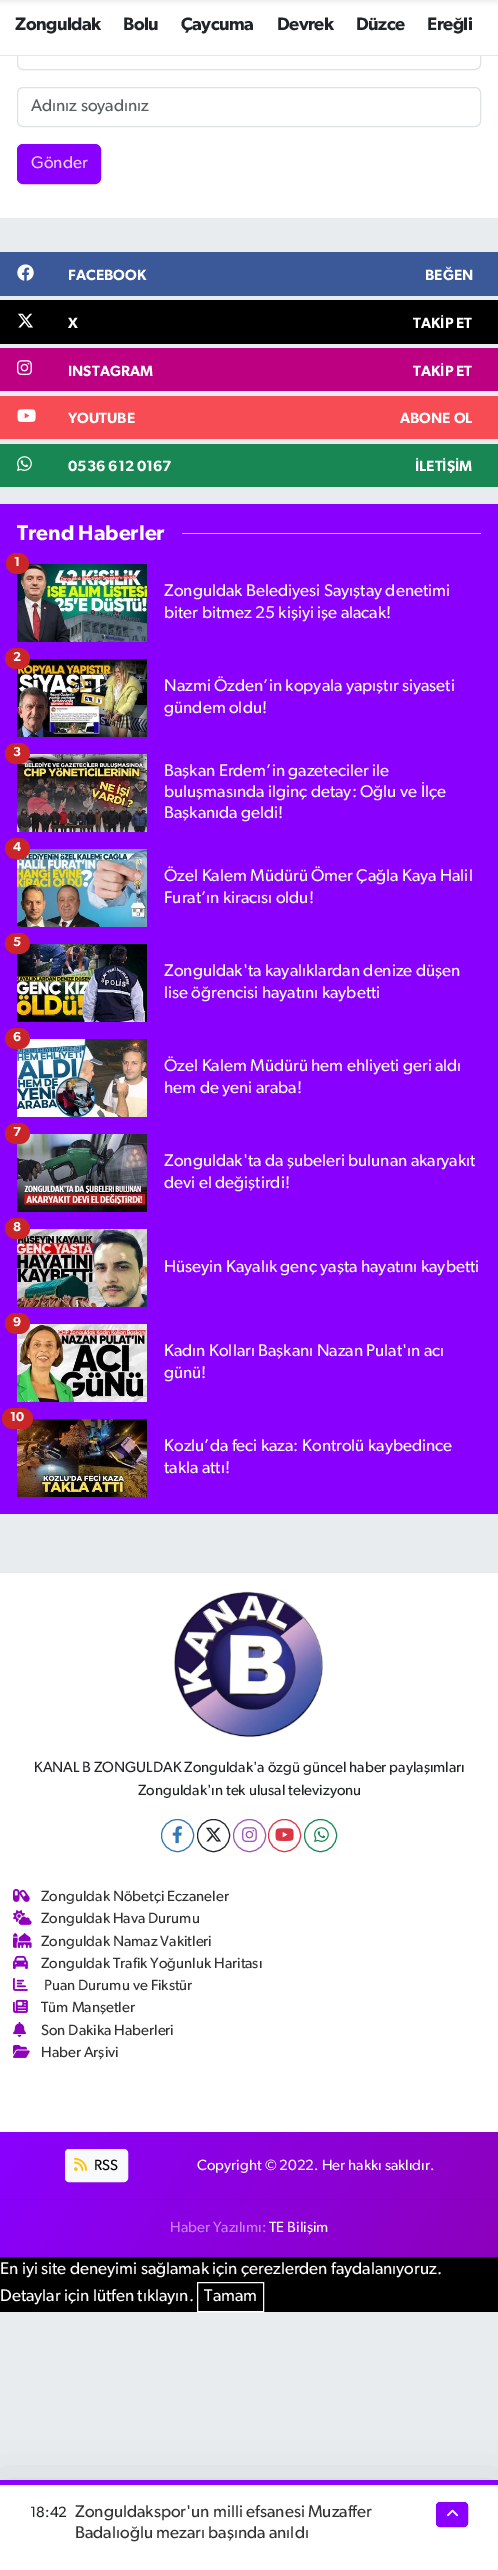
%!PS-Adobe-3.0
%%BoundingBox: 0 0 498 2570
%%LanguageLevel: 3
%%Pages: 1
%%EndComments
%%BeginProlog
/m { moveto } bind def
/l { lineto } bind def
/h { closepath } bind def
/f { fill } bind def
/S { stroke } bind def
/q { gsave } bind def
/Q { grestore } bind def
/fn { [ exch dup neg 0 0 3 -1 roll 0 0 ] selectfont } def
/tx { moveto show } def
/bx { rectfill } def
/al { dup .setfillconstantalpha .setstrokeconstantalpha } def
/ci { newpath 0 360 arc closepath } def
/rr { 5 dict begin { /r /h /w /y /x } { exch def } forall
  x r add y moveto x w add y 2 copy h add r arct x w add y h add x 1 index r arct
  x y h add x y r arct x y 2 copy exch w add exch r arct closepath end } def
/sh { 12 dict begin { /a /b /q /h /w /y /x } { exch def } forall gsave /was 0 def
  9 -2 -9 { dup b mul 4 div /e exch def 1 sub .425 mul 2.718 exch exp 1 add a .99 .min exch div /now exch def
    1 1 now sub 1 was sub div sub al /was now def
    w h .min e 2 mul add 0 gt { x e sub y e sub w e 2 mul add h e 2 mul add
      q e add b .6 mul add w h .min 2 div e add .min 0 .max rr fill } if } for grestore end } def
/im { 5 dict begin { /h /w /y /x /name } { exch def } forall
  gsave x y translate w h scale
  w h 8 [w 0 0 h 0 0] name (r) file false 3 colorimage grestore end } def
%%EndProlog
%%BeginSetup
<< /PageSize [498 2570] /PageUsesTransparency true >> setpagedevice
%%EndSetup
%%Page: 1 1
0 .pushpdf14devicefilter
0 2570 translate 1 -1 scale
4 setmiterlimit
0.914 0.925 0.937 setrgbcolor
0 0 498 2570 bx
1 setgray
0 56 498 162 bx
0.871 0.886 0.902 setrgbcolor
17.5 -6.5 463 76 5.5 rr S
1 setgray
0 0 498 55 bx
0 setgray
0 -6 498 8 0 2 0.07 sh
0.902 setgray
0 55 498 1 bx
/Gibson-SemiBold 18 fn
0.129 0.145 0.161 setrgbcolor
15 30 m -0.5 0 (Zonguldak) ashow
123 30 m -0.5 0 (Bolu) ashow
181 30 m -0.5 0 (Çaycuma) ashow
277 30 m -0.5 0 (Devrek) ashow
356 30 m -0.5 0 (Düzce) ashow
427 30 m -0.5 0 (Ereğli) ashow
0.871 0.886 0.902 setrgbcolor
17.5 87.5 463 39 5.5 rr S
/Gibson-Regular 17 fn
0.349 0.361 0.373 setrgbcolor
(Adınız soyadınız) 31 111 tx
0.537 0 1 setrgbcolor
17.5 144.5 83 39 5.5 rr q f Q
S
0.906 0.8 1 setrgbcolor
(Gönder) 31 168 tx
0.231 0.349 0.596 setrgbcolor
0 252 498 44 bx
(image0.raw) 17 264 17 17 im
/Gibson-SemiBold 14.9 fn
1 setgray
(FACEBOOK) 68 280 tx
(BEĞEN) 425 280 tx
0 setgray
0 300 498 44 bx
(image1.raw) 18 313 15 15 im
1 setgray
(X) 68 328 tx
(TAKİP ET) 413 328 tx
0.741 0 0.51 setrgbcolor
0 348 498 43 bx
(image2.raw) 17 360 15 16 im
1 setgray
(INSTAGRAM) 68 376 tx
(TAKİP ET) 413 376 tx
0.969 0.298 0.325 setrgbcolor
0 396 498 43 bx
(image3.raw) 17 409 19 13 im
1 setgray
(YOUTUBE) 68 423 tx
(ABONE OL) 400 423 tx
0.098 0.529 0.329 setrgbcolor
0 444 498 43 bx
(image4.raw) 17 456 15 15 im
1 setgray
(0536 612 0167) 68 471 tx
(İLETİŞİM) 415 471 tx
0.537 0 1 setrgbcolor
0 504 498 1010 bx
/Gibson-SemiBold 21.25 fn
1 setgray
(Trend Haberler) 17 540 tx
0.816 0.655 0.957 setrgbcolor
182 533 299 1 bx
(image5.raw) 17 564 130 78 im
0.792 0.145 0.153 setrgbcolor
6 553 23 21 10.5 rr f
/Gibson-SemiBold 13 fn
1 setgray
(1) 14 566 tx
/Gibson-Regular 17 fn
(Zonguldak Belediyesi Sayıştay denetimi) 164 596 tx
(biter bitmez 25 kişiyi işe alacak!) 164 618 tx
(image6.raw) 17 659 130 78 im
0.792 0.145 0.153 setrgbcolor
5 648 25 21 10.5 rr f
/Gibson-SemiBold 13 fn
1 setgray
(2) 13 661 tx
/Gibson-Regular 17 fn
(Nazmi Özden’in kopyala yapıştır siyaseti) 164 691 tx
(gündem oldu!) 164 713 tx
(image7.raw) 17 754 130 78 im
0.792 0.145 0.153 setrgbcolor
5 743 25 21 10.5 rr f
/Gibson-SemiBold 13 fn
1 setgray
(3) 13 756 tx
/Gibson-Regular 17 fn
(Başkan Erdem’in gazeteciler ile) 164 776 tx
(buluşmasında ilginç detay: Oğlu ve İlçe) 164 797 tx
(Başkanıda geldi!) 164 818 tx
(image8.raw) 17 849 130 78 im
0.792 0.145 0.153 setrgbcolor
5 838 25 21 10.5 rr f
/Gibson-SemiBold 13 fn
1 setgray
(4) 13 851 tx
/Gibson-Regular 17 fn
(Özel Kalem Müdürü Ömer Çağla Kaya Halil) 164 881 tx
(Furat’ın kiracısı oldu!) 164 903 tx
(image9.raw) 17 944 130 78 im
0.792 0.145 0.153 setrgbcolor
5 933 25 21 10.5 rr f
/Gibson-SemiBold 13 fn
1 setgray
(5) 13 946 tx
/Gibson-Regular 17 fn
(Zonguldak'ta kayalıklardan denize düşen) 164 976 tx
(lise öğrencisi hayatını kaybetti) 164 998 tx
(image10.raw) 17 1039 130 78 im
0.792 0.145 0.153 setrgbcolor
5 1028 25 21 10.5 rr f
/Gibson-SemiBold 13 fn
1 setgray
(6) 13 1041 tx
/Gibson-Regular 17 fn
(Özel Kalem Müdürü hem ehliyeti geri aldı) 164 1071 tx
(hem de yeni araba!) 164 1093 tx
(image11.raw) 17 1134 130 78 im
0.792 0.145 0.153 setrgbcolor
5 1123 25 21 10.5 rr f
/Gibson-SemiBold 13 fn
1 setgray
(7) 13 1136 tx
/Gibson-Regular 17 fn
(Zonguldak'ta da şubeleri bulunan akaryakıt) 164 1166 tx
(devi el değiştirdi!) 164 1188 tx
(image12.raw) 17 1229 130 78 im
0.792 0.145 0.153 setrgbcolor
5 1218 25 21 10.5 rr f
/Gibson-SemiBold 13 fn
1 setgray
(8) 13 1231 tx
/Gibson-Regular 17 fn
(Hüseyin Kayalık genç yaşta hayatını kaybetti) 164 1272 tx
(image13.raw) 17 1324 130 78 im
0.792 0.145 0.153 setrgbcolor
5 1313 25 21 10.5 rr f
/Gibson-SemiBold 13 fn
1 setgray
(9) 13 1326 tx
/Gibson-Regular 17 fn
(Kadın Kolları Başkanı Nazan Pulat'ın acı) 164 1356 tx
(günü!) 164 1378 tx
(image14.raw) 17 1419 130 78 im
0.792 0.145 0.153 setrgbcolor
2 1408 31 21 10.5 rr f
/Gibson-SemiBold 13 fn
1 setgray
(10) 10 1421 tx
/Gibson-Regular 17 fn
(Kozlu’da feci kaza: Kontrolü kaybedince) 164 1451 tx
(takla attı!) 164 1473 tx
0 1573 498 559 bx
(image15.raw) 174 1591 149 147 im
/Gibson-Regular 14.9 fn
0.129 0.145 0.161 setrgbcolor
(KANAL B ZONGULDAK Zonguldak'a özgü güncel haber paylaşımları) 34 1772 tx
(Zonguldak'ın tek ulusal televizyonu) 138 1795 tx
0.196 0.463 0.702 setrgbcolor
177.5 1835.5 16 ci S
(image16.raw) 172 1826 10 18 im
0.129 0.145 0.161 setrgbcolor
213.5 1835.5 16 ci S
(image17.raw) 206 1827 15 15 im
0.608 0.349 0.714 setrgbcolor
249.5 1835.5 16 ci S
(image18.raw) 242 1827 15 16 im
0.863 0.208 0.271 setrgbcolor
284.5 1835.5 16 ci S
(image19.raw) 275 1828 19 13 im
0.098 0.529 0.329 setrgbcolor
320.5 1835.5 16 ci S
(image20.raw) 314 1827 15 15 im
(image21.raw) 13 1888 17 14 im
0.2 setgray
(Zonguldak Nöbetçi Eczaneler) 41 1901 tx
(image22.raw) 13 1910 19 15 im
(Zonguldak Hava Durumu) 41 1923 tx
(image23.raw) 13 1933 19 15 im
(Zonguldak Namaz Vakitleri) 41 1946 tx
(image24.raw) 13 1955 15 14 im
(Zonguldak Trafik Yoğunluk Haritası) 41 1968 tx
(image25.raw) 13 1978 15 13 im
(Puan Durumu ve Fikstür) 44 1990 tx
(image26.raw) 13 1999 15 14 im
(Tüm Manşetler) 41 2012 tx
(image27.raw) 13 2022 13 15 im
(Son Dakika Haberleri) 41 2035 tx
(image28.raw) 13 2044 17 14 im
(Haber Arşivi) 41 2057 tx
q 0 2132 m 498 2132 l 498 2257 l 0 2257 l h clip newpath
<< /ShadingType 2 /ColorSpace /DeviceRGB /Coords [35 2071 463 2318] /Extend [true true] /Function << /FunctionType 2 /Domain [0 1] /C0 [0.537 0 1] /C1 [0.553 0 0.737] /N 1 >> >> shfill Q
q 0 2199 m 498 2199 l 498 2200 l 0 2200 l h clip newpath
<< /ShadingType 2 /ColorSpace /DeviceRGB /Coords [35 2071 463 2318] /Extend [true true] /Function << /FunctionType 2 /Domain [0 1] /C0 [0.435 0.035 0.792] /C1 [0.447 0.035 0.592] /N 1 >> >> shfill Q
0.973 0.976 0.98 setrgbcolor
65.5 2149.5 62 32 3.5 rr q f Q
S
(image29.raw) 74 2157 13 14 im
0 setgray
(RSS) 94 2170 tx
1 setgray
(Copyright © 2022. Her hakkı saklıdır.) 197 2170 tx
0.773 0.502 0.937 setrgbcolor
(Haber Yazılımı:) 170 2232 tx
1 setgray
(TE Bilişim) 269 2232 tx
0 setgray
0 2257 498 55 bx
/Gibson-Regular 17 fn
1 setgray
(En iyi site deneyimi sağlamak için çerezlerden faydalanıyoruz.) 0 2274 tx
(Detaylar için lütfen tıklayın.) 0 2301 tx
197.5 2282.5 66 29 rectstroke
(Tamam) 204 2301 tx
0 setgray
0 2497 498 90 0 25.5 0.18 sh
1 setgray
0 2485 498 85 bx
0.537 0 1 setrgbcolor
0 2480 498 5 bx
/Gibson-Regular 14.9 fn
0.129 0.145 0.161 setrgbcolor
(18:42) 30 2517 tx
/Gibson-Regular 17 fn
0.2 setgray
(Zonguldakspor'un milli efsanesi Muzaffer) 75 2517 tx
(Badalıoğlu mezarı başında anıldı) 75 2538 tx
0.537 0 1 setrgbcolor
436.5 2502.5 31 24 3.5 rr q f Q
S
(image30.raw) 447 2509 11 8 im
.poppdf14devicefilter showpage
%%EOF
